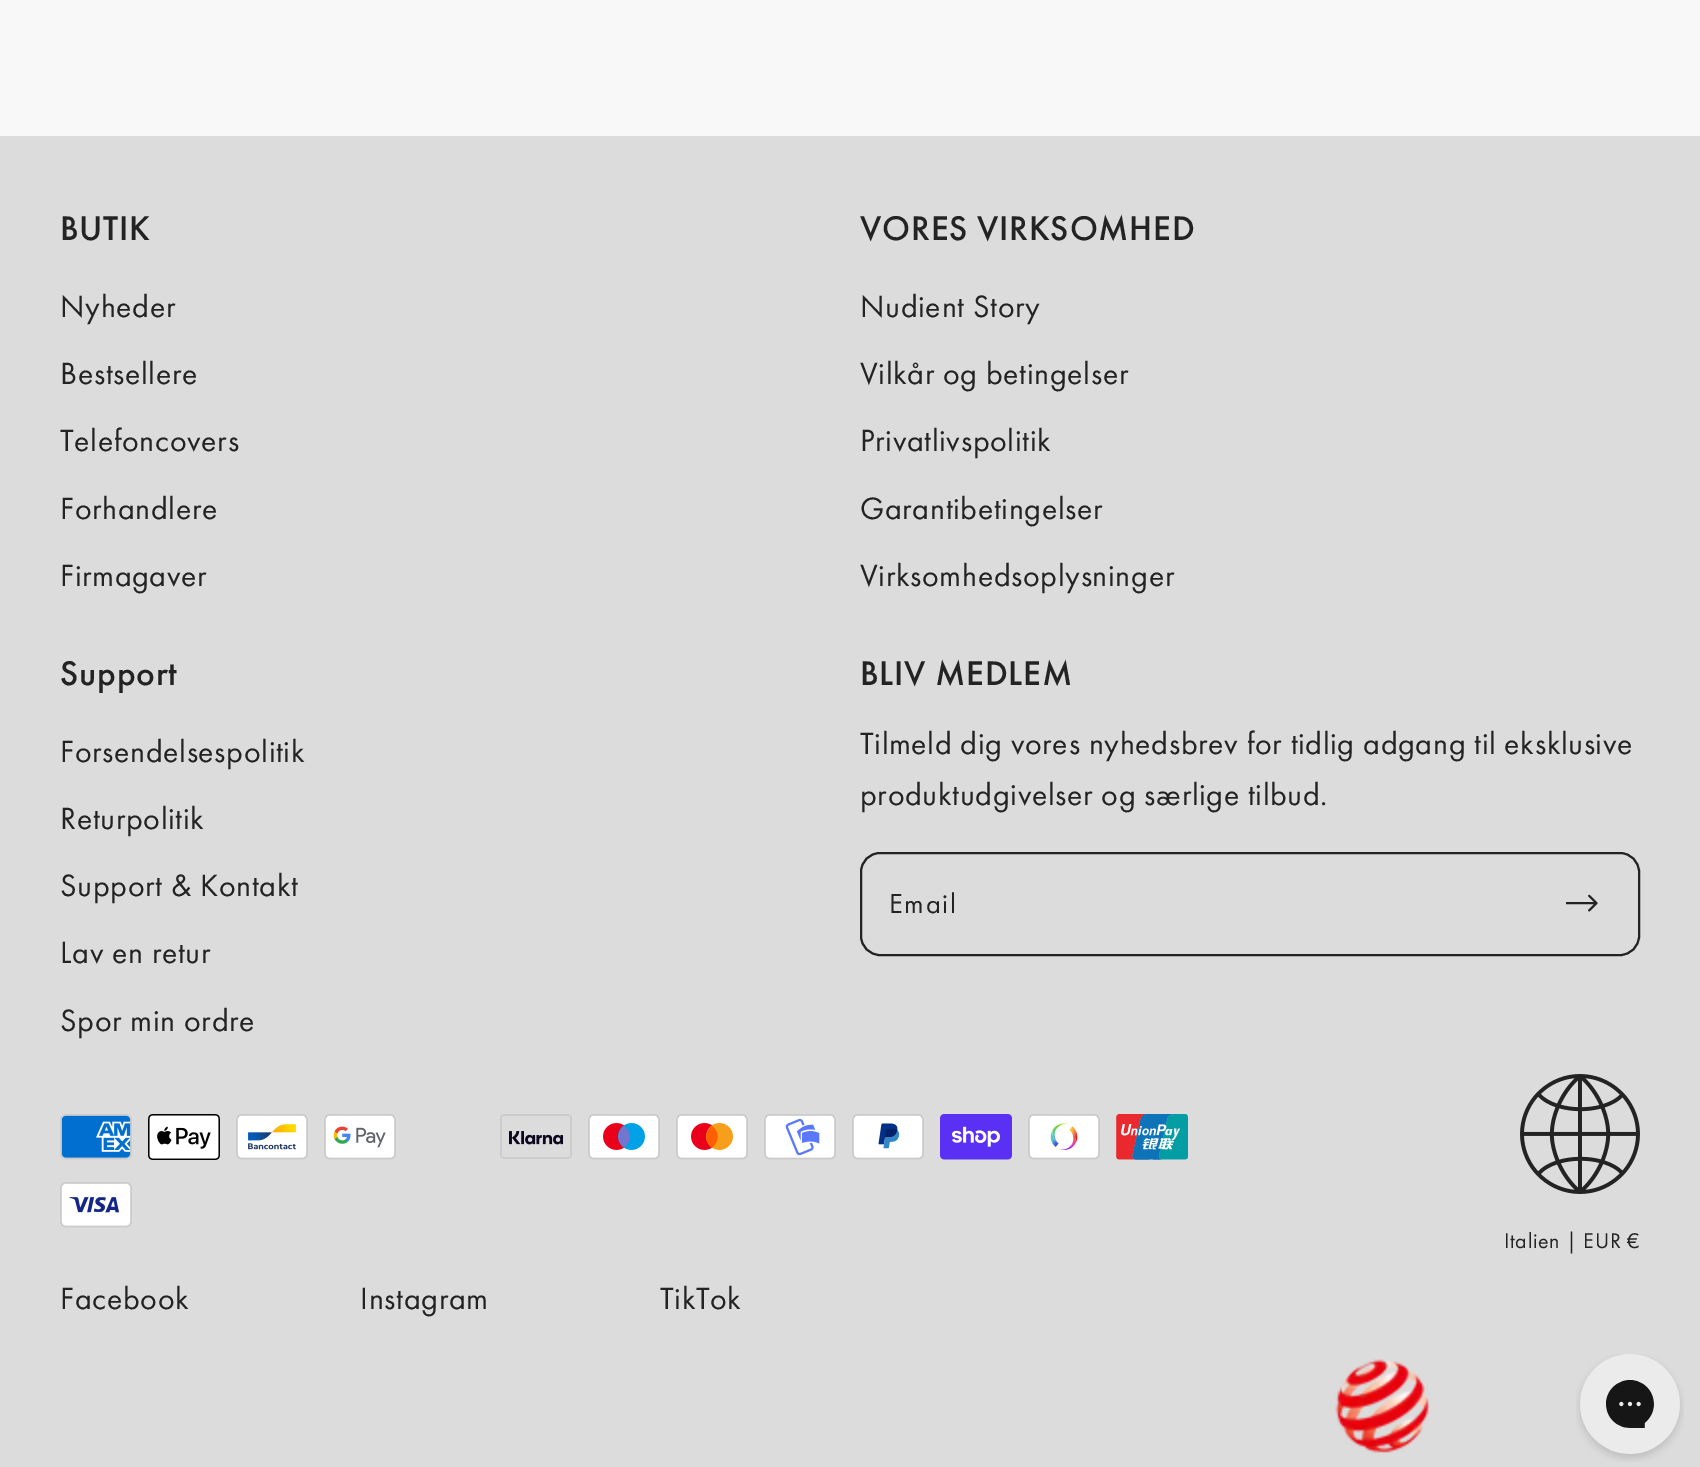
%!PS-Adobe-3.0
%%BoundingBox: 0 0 1700 1467
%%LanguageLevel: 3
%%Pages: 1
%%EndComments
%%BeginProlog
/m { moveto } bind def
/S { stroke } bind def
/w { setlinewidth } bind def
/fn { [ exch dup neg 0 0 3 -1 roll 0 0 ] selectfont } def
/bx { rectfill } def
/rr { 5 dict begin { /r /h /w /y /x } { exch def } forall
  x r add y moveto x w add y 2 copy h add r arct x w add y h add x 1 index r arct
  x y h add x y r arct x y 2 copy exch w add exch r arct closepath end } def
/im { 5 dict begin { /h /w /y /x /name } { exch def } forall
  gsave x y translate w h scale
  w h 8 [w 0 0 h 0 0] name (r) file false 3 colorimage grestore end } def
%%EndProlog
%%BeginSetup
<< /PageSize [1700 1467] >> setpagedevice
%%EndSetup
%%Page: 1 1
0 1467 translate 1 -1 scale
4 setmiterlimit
0.973 setgray
0 0 1700 1467 bx
0.863 setgray
0 136 1700 1331 bx
/FuturaPT-Medium 35.5 fn
0.137 setgray
60 240 m 0.75 0 (BUTIK) ashow
/FuturaPT-Regular 32 fn
60 317 m 0.65 0 (Nyheder) ashow
60 384 m 0.65 0 (Bestsellere) ashow
60 451 m 0.65 0 (Telefoncovers) ashow
60 519 m 0.65 0 (Forhandlere) ashow
60 586 m 0.65 0 (Firmagaver) ashow
/FuturaPT-Medium 35.5 fn
860 240 m 0.75 0 (VORES VIRKSOMHED) ashow
/FuturaPT-Regular 32 fn
860 317 m 0.65 0 (Nudient Story) ashow
860 384 m 0.65 0 (Vilkår og betingelser) ashow
860 451 m 0.65 0 (Privatlivspolitik) ashow
860 519 m 0.65 0 (Garantibetingelser) ashow
860 586 m 0.65 0 (Virksomhedsoplysninger) ashow
/FuturaPT-Medium 35.5 fn
60 685 m 0.75 0 (Support) ashow
/FuturaPT-Regular 32 fn
60 762 m 0.65 0 (Forsendelsespolitik) ashow
60 829 m 0.65 0 (Returpolitik) ashow
60 896 m 0.65 0 (Support & Kontakt) ashow
60 963 m 0.65 0 (Lav en retur) ashow
60 1031 m 0.65 0 (Spor min ordre) ashow
/FuturaPT-Medium 35.5 fn
860 685 m 0.75 0 (BLIV MEDLEM) ashow
/FuturaPT-Regular 32 fn
860 754 m 0.65 0 (Tilmeld dig vores nyhedsbrev for tidlig adgang til eksklusive) ashow
860 805 m 0.65 0 (produktudgivelser og særlige tilbud.) ashow
2 w
861 853 778 102 19 rr S
/FuturaPT-Regular 28.5 fn
889 913 m 1.75 0 (Email) ashow
(image0.raw) 1566 894 32 18 im
(image1.raw) 1520 1074 120 120 im
/FuturaPT-Regular 22 fn
1504 1248 m 0.65 0 (Italien | EUR €) ashow
(image2.raw) 60 1114 72 46 im
(image3.raw) 148 1114 72 46 im
(image4.raw) 236 1114 72 46 im
(image5.raw) 324 1114 72 46 im
(image6.raw) 500 1114 72 45 im
(image7.raw) 588 1114 72 46 im
(image8.raw) 676 1114 72 46 im
(image9.raw) 764 1114 72 46 im
(image10.raw) 852 1114 72 46 im
(image11.raw) 940 1114 72 46 im
(image12.raw) 1028 1114 72 46 im
(image13.raw) 1116 1114 72 46 im
(image14.raw) 60 1182 72 46 im
/FuturaPT-Regular 32 fn
60 1309 m 0.65 0 (Facebook) ashow
360 1309 m 0.65 0 (Instagram) ashow
660 1309 m 0.65 0 (TikTok) ashow
(image15.raw) 1335 1359 95 94 im
(image16.raw) 1576 1354 108 108 im
showpage
%%EOF
